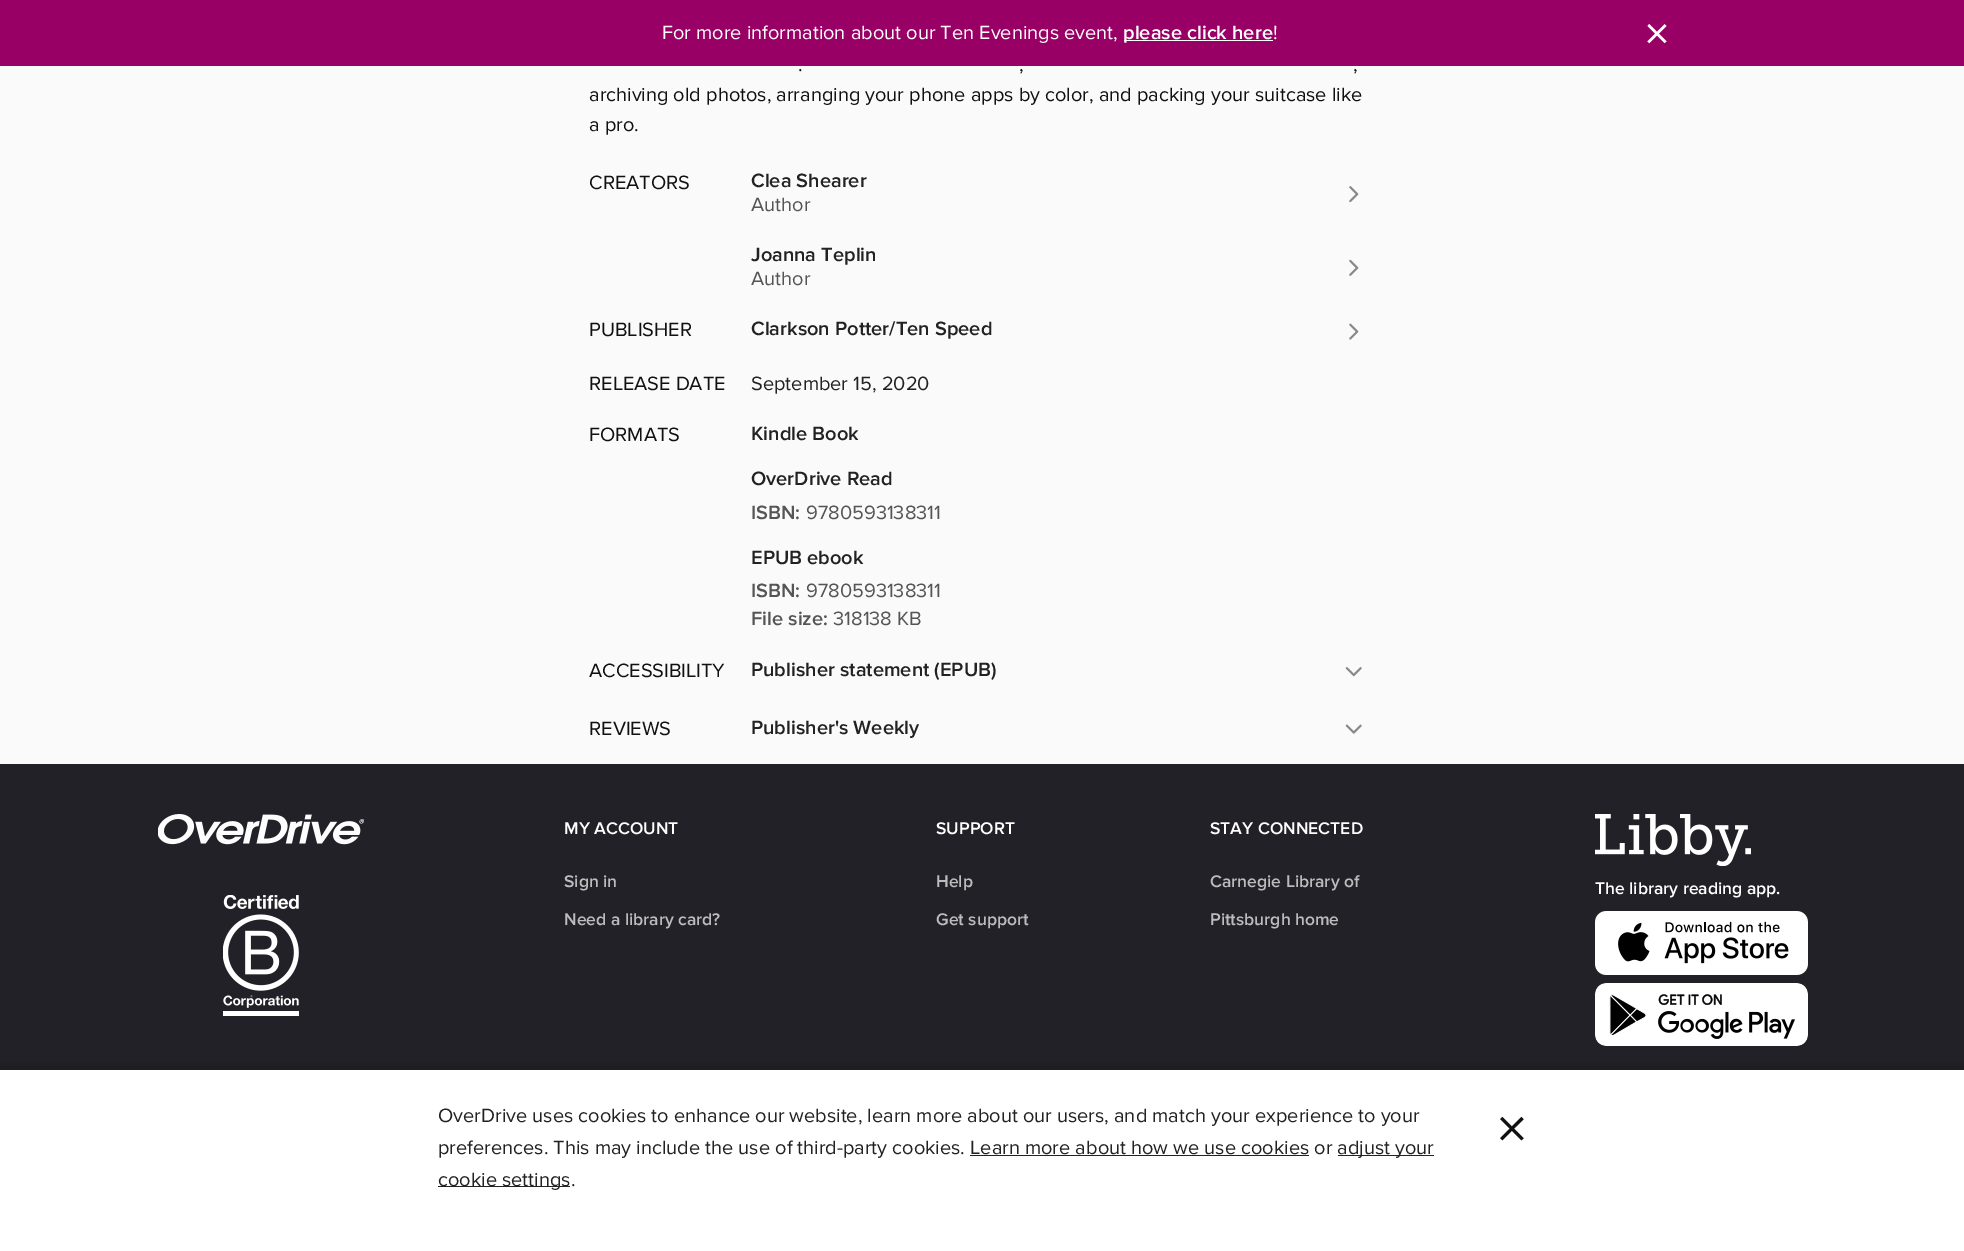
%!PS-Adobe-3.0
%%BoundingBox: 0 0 1964 1251
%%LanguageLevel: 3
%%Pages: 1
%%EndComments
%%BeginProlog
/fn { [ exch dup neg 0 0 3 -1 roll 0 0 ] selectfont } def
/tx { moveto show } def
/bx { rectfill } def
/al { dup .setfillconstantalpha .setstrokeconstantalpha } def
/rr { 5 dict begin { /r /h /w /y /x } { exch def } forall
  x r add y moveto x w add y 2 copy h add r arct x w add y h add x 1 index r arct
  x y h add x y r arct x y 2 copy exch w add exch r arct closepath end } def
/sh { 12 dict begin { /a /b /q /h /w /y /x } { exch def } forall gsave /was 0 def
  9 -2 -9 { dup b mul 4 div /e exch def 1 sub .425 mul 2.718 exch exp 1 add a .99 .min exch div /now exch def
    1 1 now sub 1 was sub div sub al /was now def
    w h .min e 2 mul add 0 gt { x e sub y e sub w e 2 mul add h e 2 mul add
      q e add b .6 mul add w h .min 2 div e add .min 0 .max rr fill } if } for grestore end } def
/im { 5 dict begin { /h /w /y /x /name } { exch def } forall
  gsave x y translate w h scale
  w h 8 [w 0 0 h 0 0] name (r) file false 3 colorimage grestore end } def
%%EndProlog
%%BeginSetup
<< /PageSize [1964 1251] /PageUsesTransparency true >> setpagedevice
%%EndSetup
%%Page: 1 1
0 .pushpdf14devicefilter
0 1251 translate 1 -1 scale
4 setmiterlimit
0.98 setgray
0 0 1964 1251 bx
0.596 0 0.396 setrgbcolor
0 0 1964 66 bx
/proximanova-Regular 20 fn
1 setgray
(For more information about our Ten Evenings event,) 662 39 tx
1124 40 149 1 bx
/ProximaNova-SemiBold 20 fn
(please click here) 1123 39 tx
/proximanova-Regular 20 fn
(!) 1273 39 tx
/proximanova-Regular 52 fn
(×) 1644 51 tx
/proximanova-Regular 20 fn
0.067 setgray
(.) 798 71 tx
(,) 1019 71 tx
(,) 1353 71 tx
(archiving old photos, arranging your phone apps by color, and packing your suitcase like) 589 101 tx
(a pro.) 589 131 tx
(CREATORS) 589 189 tx
/ProximaNova-SemiBold 20 fn
0.133 setgray
(Clea Shearer) 751 187 tx
/proximanova-Regular 20 fn
0.333 setgray
(Author) 751 211 tx
(image0.raw) 1349 186 10 17 im
/ProximaNova-SemiBold 20 fn
0.133 setgray
(Joanna Teplin) 751 261 tx
/proximanova-Regular 20 fn
0.333 setgray
(Author) 751 285 tx
(image1.raw) 1349 259 10 17 im
0.067 setgray
(PUBLISHER) 589 336 tx
/ProximaNova-SemiBold 20 fn
0.133 setgray
(Clarkson Potter/Ten Speed) 751 335 tx
(image2.raw) 1349 323 10 17 im
/proximanova-Regular 20 fn
0.067 setgray
(RELEASE DATE) 589 390 tx
0.133 setgray
(September 15, 2020) 751 390 tx
0.067 setgray
(FORMATS) 589 441 tx
/ProximaNova-SemiBold 20 fn
0.133 setgray
(Kindle Book) 751 440 tx
(OverDrive Read) 751 485 tx
0.333 setgray
(ISBN:) 751 519 tx
/proximanova-Regular 20 fn
(9780593138311) 806 519 tx
/ProximaNova-SemiBold 20 fn
0.133 setgray
(EPUB ebook) 751 564 tx
0.333 setgray
(ISBN:) 751 597 tx
/proximanova-Regular 20 fn
(9780593138311) 806 597 tx
/ProximaNova-SemiBold 20 fn
(File size:) 751 625 tx
/proximanova-Regular 20 fn
(318138 KB) 833 625 tx
0.067 setgray
(ACCESSIBILITY) 589 677 tx
/ProximaNova-SemiBold 20 fn
0.133 setgray
(Publisher statement \(EPUB\)) 751 676 tx
(image3.raw) 1345 667 17 10 im
/proximanova-Regular 20 fn
0.067 setgray
(REVIEWS) 589 735 tx
/ProximaNova-SemiBold 20 fn
0.133 setgray
(Publisher's Weekly) 751 734 tx
(image4.raw) 1345 724 17 10 im
0.129 0.129 0.153 setrgbcolor
0 764 1964 306 bx
(image5.raw) 158 814 206 31 im
(image6.raw) 223 895 76 121 im
/ProximaNova-SemiBold 17.5 fn
1 setgray
(MY ACCOUNT) 564 834 tx
0.737 0.737 0.745 setrgbcolor
(Sign in) 564 887 tx
(Need a library card?) 564 925 tx
1 setgray
(SUPPORT) 936 834 tx
0.737 0.737 0.745 setrgbcolor
(Help) 936 887 tx
(Get support) 936 925 tx
1 setgray
(STAY CONNECTED) 1210 834 tx
0.737 0.737 0.745 setrgbcolor
(Carnegie Library of) 1210 887 tx
(Pittsburgh home) 1210 925 tx
(image7.raw) 1595 814 156 52 im
1 setgray
(The library reading app.) 1595 894 tx
(image8.raw) 1595 911 213 64 im
(image9.raw) 1595 983 213 63 im
0 setgray
-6 1064 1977 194 0 3 0.15 sh
1 setgray
0 1070 1964 181 bx
/proximanova-Regular 20 fn
0.133 setgray
(OverDrive uses cookies to enhance our website, learn more about our users, and match your experience to your) 438 1122 tx
(preferences. This may include the use of third-party cookies. Learn more about how we use cookies or) 438 1154 tx
970 1155 339 1 bx
1338 1155 96 1 bx
(adjust your) 1337 1154 tx
438 1186 132 1 bx
(cookie settings.) 438 1186 tx
/proximanova-Regular 64 fn
0.067 setgray
(×) 1496 1150 tx
.poppdf14devicefilter showpage
%%EOF
